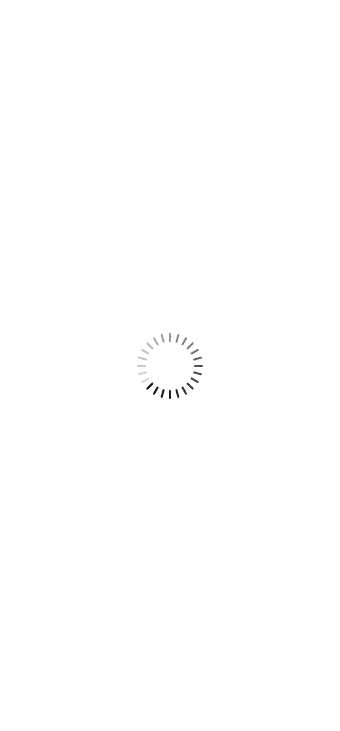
%!PS-Adobe-3.0
%%BoundingBox: 0 0 340 731
%%LanguageLevel: 3
%%Pages: 1
%%EndComments
%%BeginProlog
/bx { rectfill } def
/im { 5 dict begin { /h /w /y /x /name } { exch def } forall
  gsave x y translate w h scale
  w h 8 [w 0 0 h 0 0] name (r) file false 3 colorimage grestore end } def
%%EndProlog
%%BeginSetup
<< /PageSize [340 731] >> setpagedevice
%%EndSetup
%%Page: 1 1
0 731 translate 1 -1 scale
4 setmiterlimit
1 setgray
0 0 340 731 bx
(image0.raw) 137 333 66 66 im
showpage
%%EOF
